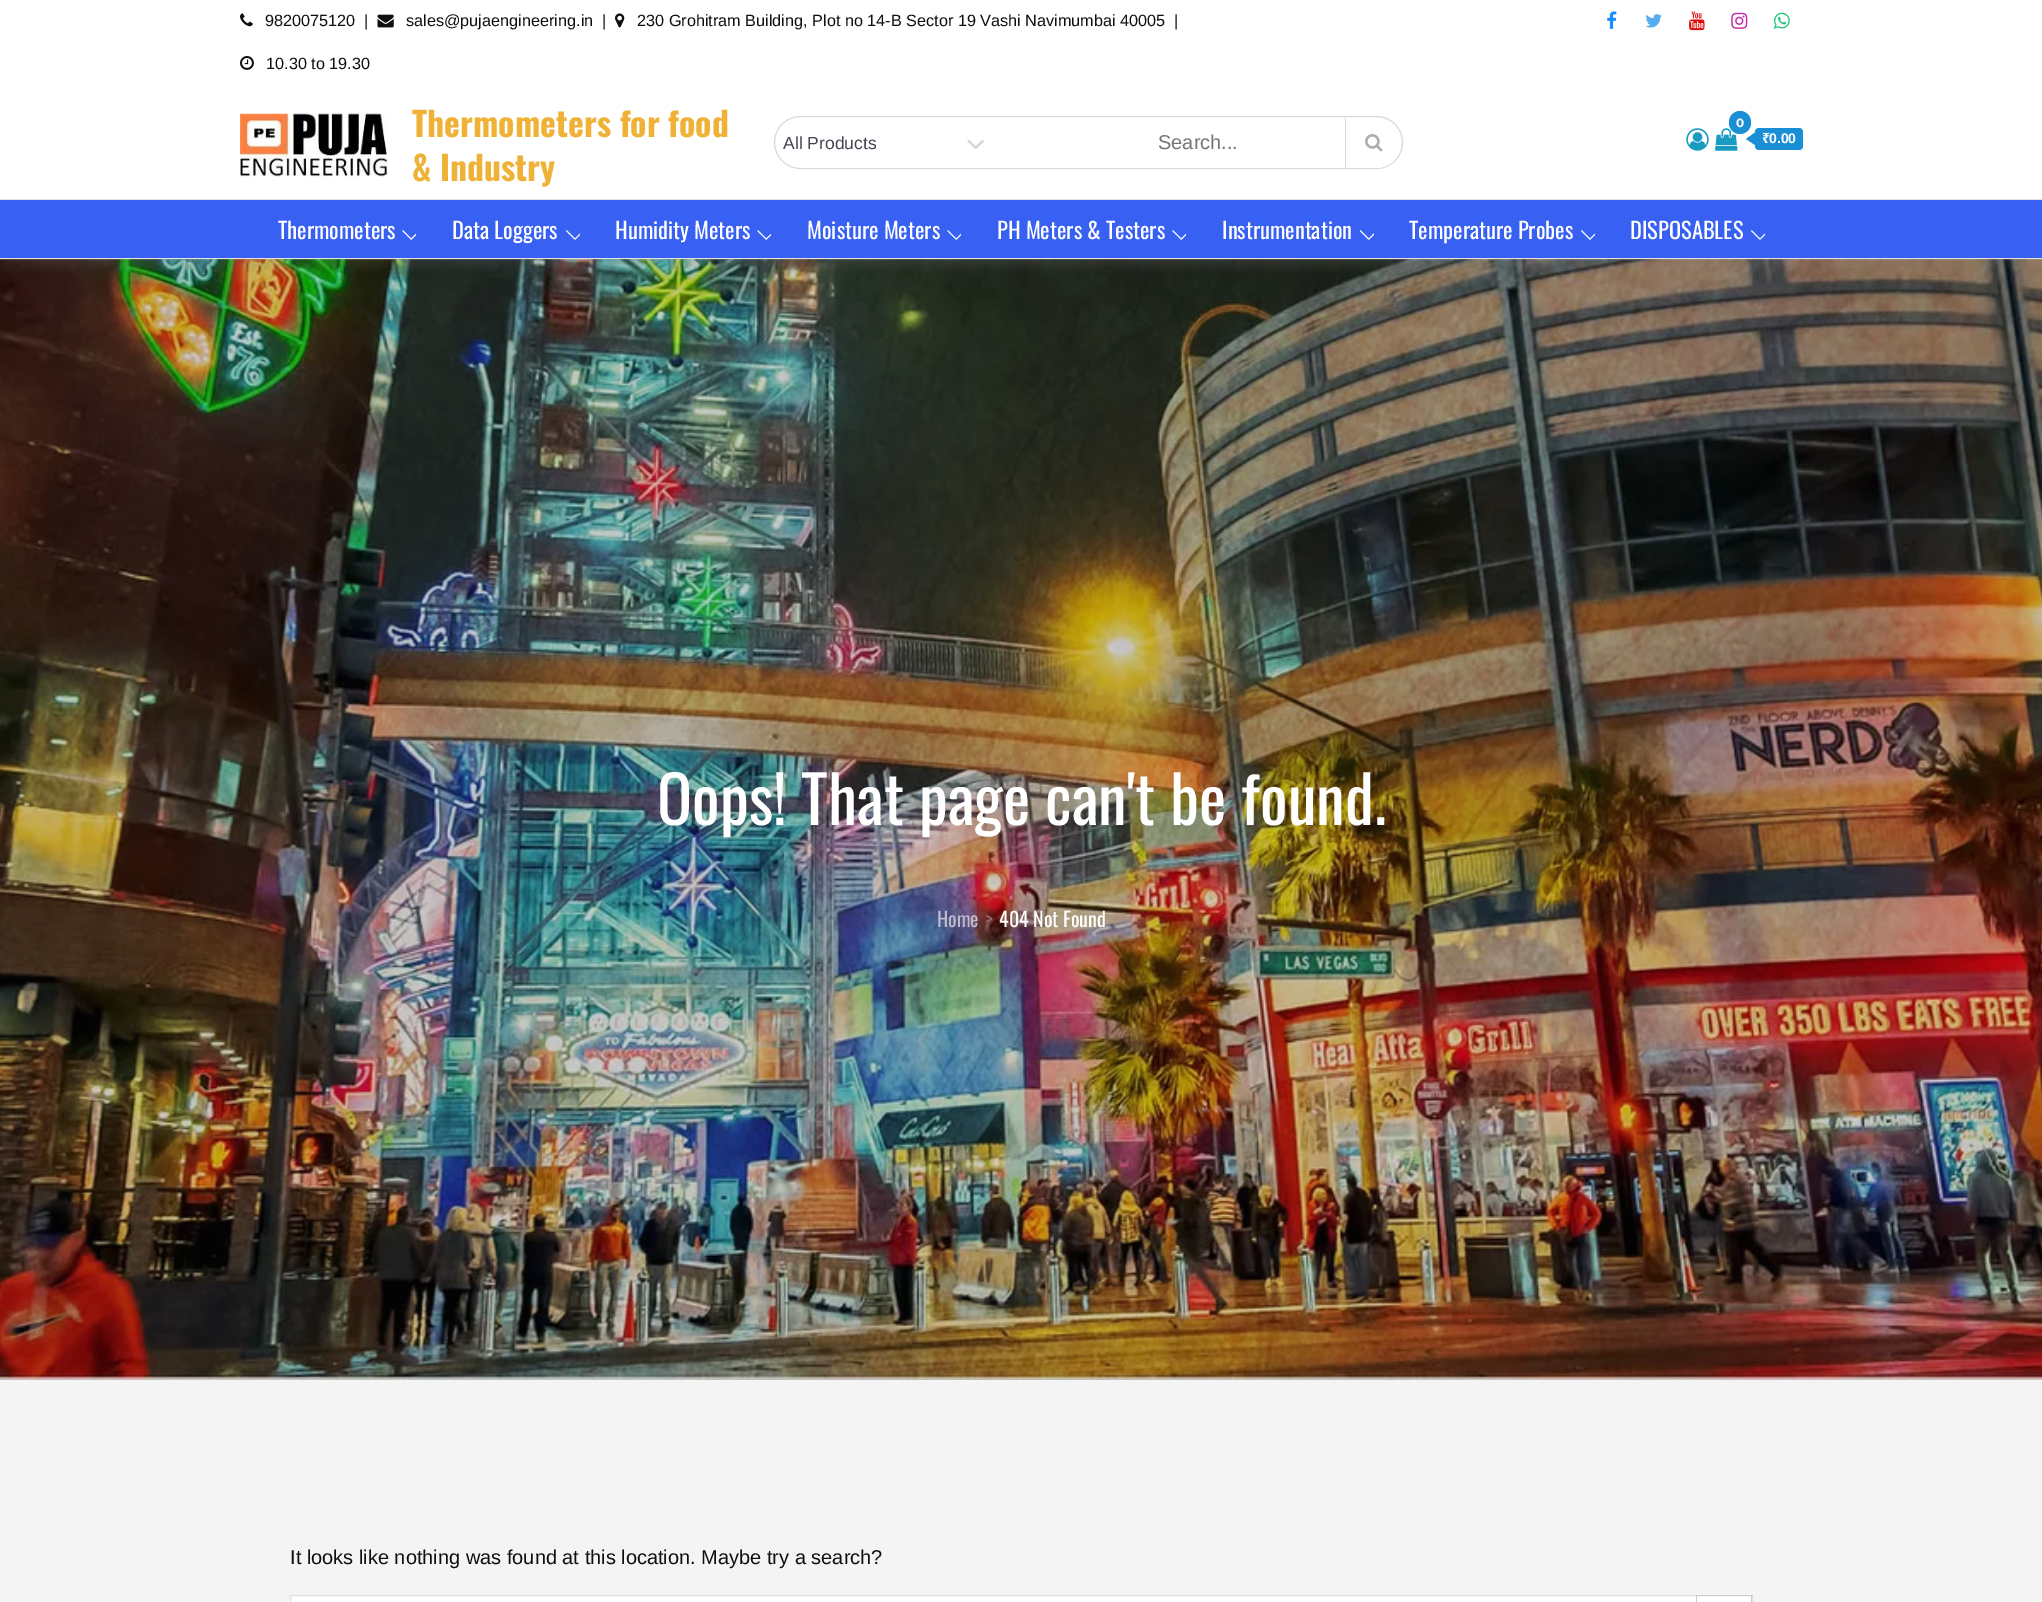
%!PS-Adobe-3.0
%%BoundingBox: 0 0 2042 1602
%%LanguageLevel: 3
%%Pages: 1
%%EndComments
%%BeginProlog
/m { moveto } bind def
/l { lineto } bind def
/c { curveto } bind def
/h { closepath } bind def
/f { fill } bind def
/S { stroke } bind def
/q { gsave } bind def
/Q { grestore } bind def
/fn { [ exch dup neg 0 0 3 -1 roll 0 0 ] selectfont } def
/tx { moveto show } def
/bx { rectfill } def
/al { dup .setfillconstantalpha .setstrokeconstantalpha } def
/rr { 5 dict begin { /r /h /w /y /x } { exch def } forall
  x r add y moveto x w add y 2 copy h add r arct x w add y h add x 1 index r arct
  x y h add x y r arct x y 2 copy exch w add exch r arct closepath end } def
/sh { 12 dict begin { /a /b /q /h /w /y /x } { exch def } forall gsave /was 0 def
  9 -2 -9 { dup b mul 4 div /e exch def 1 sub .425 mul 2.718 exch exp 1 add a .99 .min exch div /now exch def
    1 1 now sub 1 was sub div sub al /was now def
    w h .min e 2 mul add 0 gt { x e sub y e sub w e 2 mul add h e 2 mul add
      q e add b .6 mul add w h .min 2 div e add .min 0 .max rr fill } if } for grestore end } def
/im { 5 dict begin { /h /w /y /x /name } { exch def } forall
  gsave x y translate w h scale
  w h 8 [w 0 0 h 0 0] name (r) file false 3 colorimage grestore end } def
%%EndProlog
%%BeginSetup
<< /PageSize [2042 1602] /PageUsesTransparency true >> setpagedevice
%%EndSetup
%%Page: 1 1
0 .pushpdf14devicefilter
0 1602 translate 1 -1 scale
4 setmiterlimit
0.957 setgray
0 0 2042 1602 bx
(image17.raw) 0 259 2042 1121 im
0.51 setgray
4 15 2035 251 0 5 0.18 sh
1 setgray
0 0 2042 199 bx
(image0.raw) 240 13 13 14 im
/LiberationSans-Regular 16.25 fn
0.059 setgray
(9820075120) 265 26 tx
(|) 364 26 tx
(image1.raw) 377 14 17 14 im
(sales@pujaengineering.in) 406 26 tx
(|) 602 26 tx
(image2.raw) 615 13 10 15 im
(230 Grohitram Building, Plot no 14-B Sector 19 Vashi Navimumbai 40005) 637 26 tx
(|) 1174 26 tx
(image3.raw) 240 56 14 14 im
(10.30 to 19.30) 266 69 tx
(image4.raw) 1607 11 10 18 im
(image5.raw) 1645 14 17 14 im
(image6.raw) 1689 11 16 20 im
(image7.raw) 1731 12 17 17 im
(image8.raw) 1773 12 17 17 im
(image9.raw) 240 113 148 64 im
/Oswald-Bold 33.75 fn
0.937 0.698 0.216 setrgbcolor
(Thermometers for food) 412 137 tx
(& Industry) 412 181 tx
0.851 setgray
774.5 116.5 628 52 26 rr S
(image10.raw) 967 140 17 9 im
/LiberationSans-Regular 17.5 fn
0.247 0.267 0.302 setrgbcolor
(All Products) 783 149 tx
1 setgray
994 118 m 1376 118 l 1390 118 1401 129 1401 143 c 1401 157 1390 168 1376 168 c 994 168 l h f
/LiberationSans-Regular 20 fn
0.459 setgray
(Search...) 1158 149 tx
0.851 setgray
1345 118 1 50 bx
(image11.raw) 1365 134 18 18 im
(image12.raw) 1686 128 23 23 im
(image13.raw) 1715 128 23 23 im
0.106 0.561 0.835 setrgbcolor
1729 111 22 23 11 rr f
/Montserrat-Bold 12 fn
1 setgray
(0) 1736 127 tx
0.106 0.561 0.835 setrgbcolor
1755 128 48 22 4 rr f
1755 132.5 m 1755 145 l 1746 139 l h f
/NotoSans-Bold 14 fn
1 setgray
(₹) 1762 143 tx
/LiberationSans-Bold 14 fn
(0.00) 1769 143 tx
0.22 0.38 0.957 setrgbcolor
0 200 2042 58 bx
0.882 setgray
0 199 2042 1 bx
0 258 2042 1 bx
/Oswald-Regular 22.5 fn
1 setgray
(Thermometers) 278 239 tx
(image14.raw) 402 230 14 10 im
(Data Loggers) 452 239 tx
(image15.raw) 566 230 14 10 im
(Humidity Meters) 615 239 tx
(image14.raw) 757 230 14 10 im
(Moisture Meters) 807 239 tx
(image14.raw) 947 230 14 10 im
(PH Meters & Testers) 997 239 tx
(image14.raw) 1172 230 14 10 im
(Instrumentation) 1222 239 tx
(image16.raw) 1359 230 15 10 im
(Temperature Probes) 1409 239 tx
(image15.raw) 1581 230 14 10 im
(DISPOSABLES) 1630 239 tx
(image15.raw) 1751 230 14 10 im
/Oswald-Regular 65 fn
(Oops! That page can't be found.) 657 825 tx
/Oswald-Regular 20 fn
0.741 0.733 0.796 setrgbcolor
(Home) 937 927 tx
0.592 0.416 0.412 setrgbcolor
(>) 985 927 tx
1 setgray
(404 Not Found) 999 927 tx
/LiberationSans-Regular 20 fn
0.059 setgray
(It looks like nothing was found at this location. Maybe try a search?) 290 1564 tx
1 setgray
290.5 1595.5 m 1752.5 1595.5 l 1752.5 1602.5 l 290.5 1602.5 l h q f Q
0.878 setgray
S
0.8 setgray
1696 1595 57 1 bx
1751 1595 1 7 bx
1696 1595 1 7 bx
.poppdf14devicefilter showpage
%%EOF
